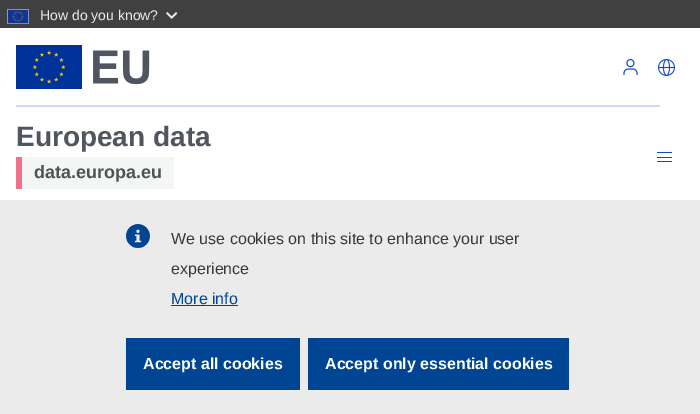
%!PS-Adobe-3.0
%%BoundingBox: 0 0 700 414
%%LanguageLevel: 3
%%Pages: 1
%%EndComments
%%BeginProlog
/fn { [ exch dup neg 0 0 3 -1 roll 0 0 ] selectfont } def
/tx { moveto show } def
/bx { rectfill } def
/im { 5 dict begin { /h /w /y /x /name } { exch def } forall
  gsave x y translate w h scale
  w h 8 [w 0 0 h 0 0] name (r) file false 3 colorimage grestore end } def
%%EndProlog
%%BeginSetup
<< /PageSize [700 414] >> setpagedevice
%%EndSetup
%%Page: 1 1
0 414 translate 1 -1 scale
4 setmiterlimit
1 setgray
0 0 700 414 bx
0.251 setgray
0 0 700 28 bx
(image0.raw) 7 9 22 15 im
/LiberationSans-Regular 14 fn
0.922 setgray
(How do you know?) 40 20 tx
(image1.raw) 166 12 12 7 im
(image2.raw) 16 45 134 44 im
(image3.raw) 623 59 15 16 im
(image4.raw) 658 59 17 17 im
0.812 0.855 0.961 setrgbcolor
16 105 644 2 bx
/LiberationSans-Bold 28 fn
0.318 0.333 0.376 setrgbcolor
(European data) 16 146 tx
0.957 0.961 0.961 setrgbcolor
22 157 152 32 bx
0.949 0.443 0.541 setrgbcolor
16 157 6 32 bx
/LiberationSans-Bold 18 fn
0.302 0.322 0.341 setrgbcolor
(data.europa.eu) 34 178 tx
0.055 0.278 0.796 setrgbcolor
657 152 15 1 bx
657 157 15 1 bx
657 161 15 1 bx
0.922 setgray
0 200 700 214 bx
(image5.raw) 126 224 24 24 im
/LiberationSans-Regular 16 fn
0.204 0.227 0.251 setrgbcolor
(We use cookies on this site to enhance your user) 171 244 tx
(experience) 171 274 tx
0 0.267 0.58 setrgbcolor
(More info) 171 304 tx
171 305 67 1 bx
126 338 174 52 bx
/LiberationSans-Bold 16 fn
1 setgray
(Accept all cookies) 143 369 tx
0 0.267 0.58 setrgbcolor
308 338 261 52 bx
1 setgray
(Accept only essential cookies) 325 369 tx
showpage
%%EOF
